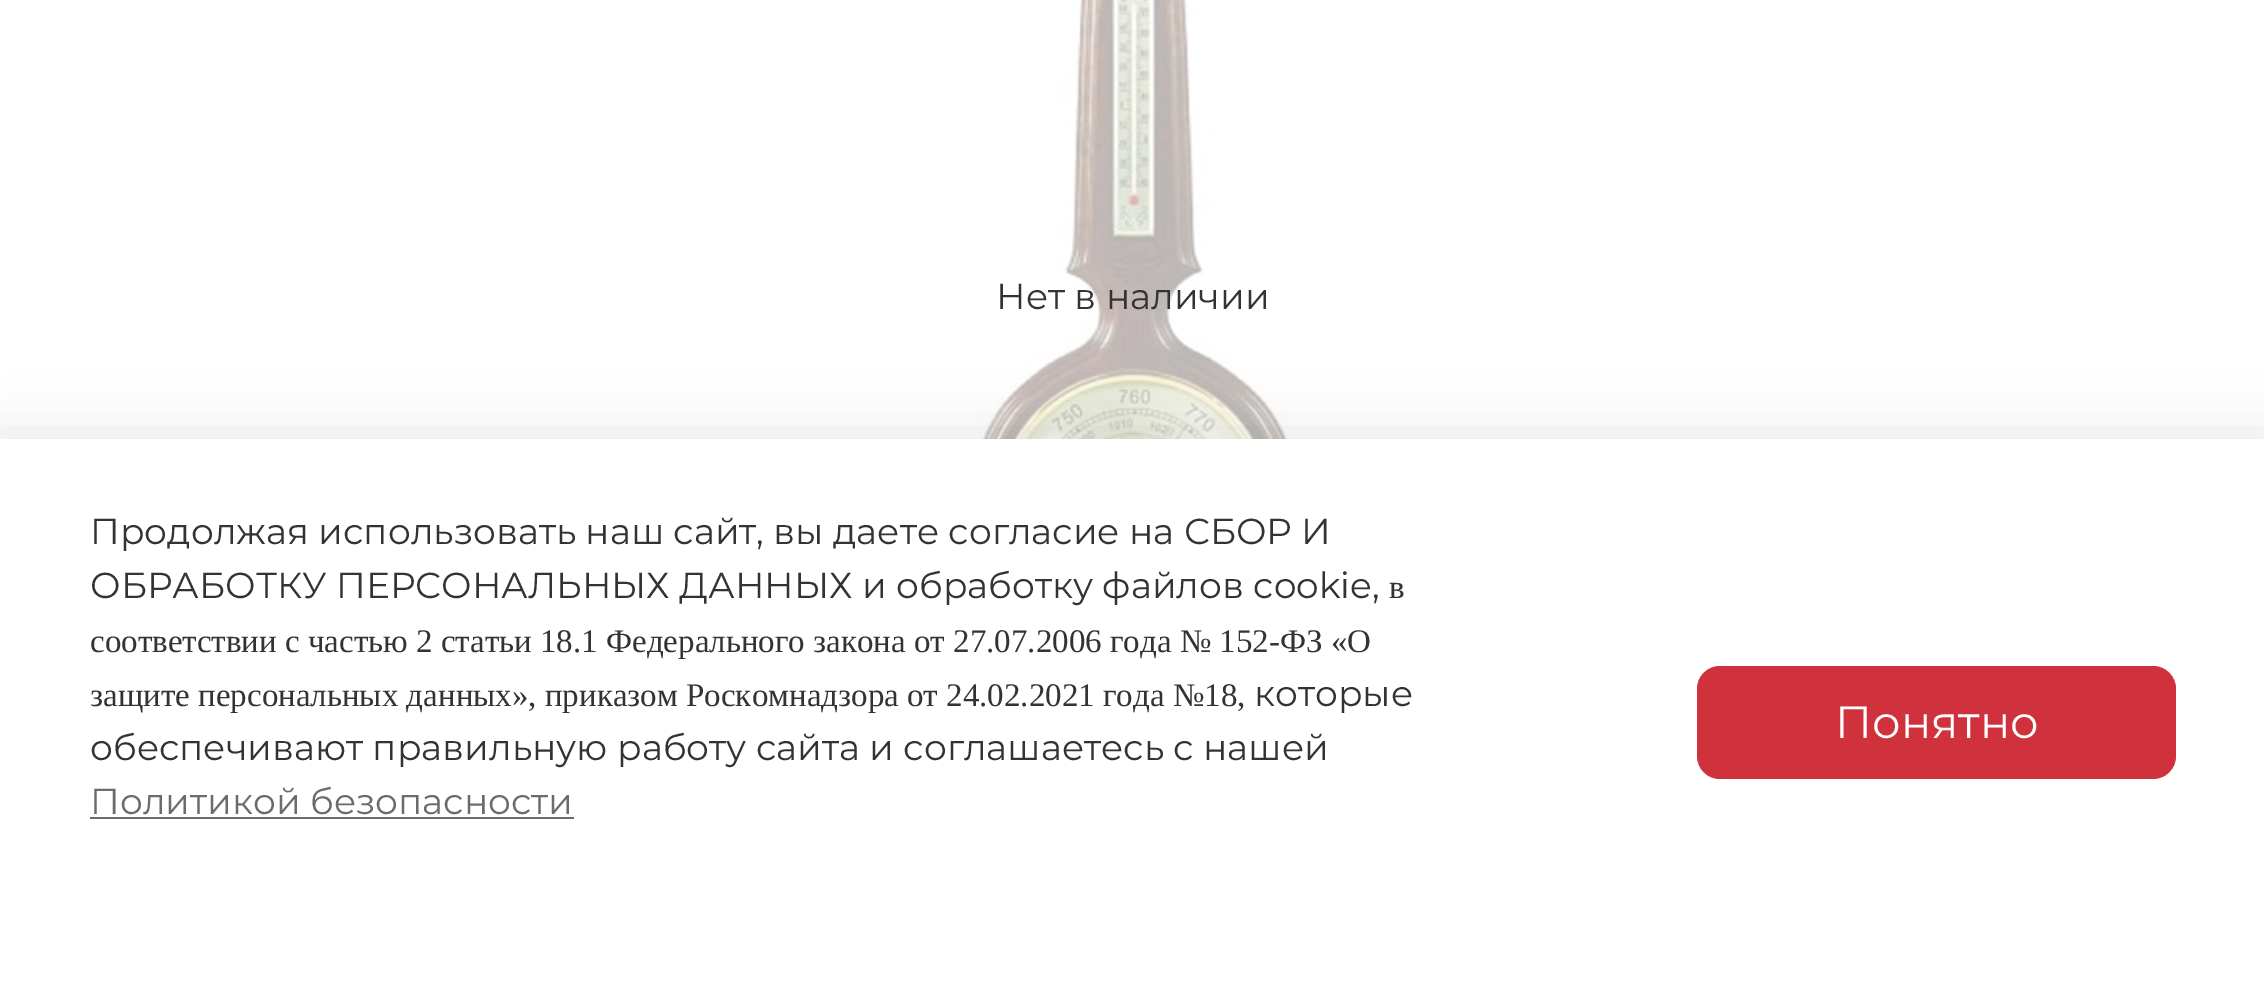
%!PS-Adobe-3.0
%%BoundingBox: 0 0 2264 982
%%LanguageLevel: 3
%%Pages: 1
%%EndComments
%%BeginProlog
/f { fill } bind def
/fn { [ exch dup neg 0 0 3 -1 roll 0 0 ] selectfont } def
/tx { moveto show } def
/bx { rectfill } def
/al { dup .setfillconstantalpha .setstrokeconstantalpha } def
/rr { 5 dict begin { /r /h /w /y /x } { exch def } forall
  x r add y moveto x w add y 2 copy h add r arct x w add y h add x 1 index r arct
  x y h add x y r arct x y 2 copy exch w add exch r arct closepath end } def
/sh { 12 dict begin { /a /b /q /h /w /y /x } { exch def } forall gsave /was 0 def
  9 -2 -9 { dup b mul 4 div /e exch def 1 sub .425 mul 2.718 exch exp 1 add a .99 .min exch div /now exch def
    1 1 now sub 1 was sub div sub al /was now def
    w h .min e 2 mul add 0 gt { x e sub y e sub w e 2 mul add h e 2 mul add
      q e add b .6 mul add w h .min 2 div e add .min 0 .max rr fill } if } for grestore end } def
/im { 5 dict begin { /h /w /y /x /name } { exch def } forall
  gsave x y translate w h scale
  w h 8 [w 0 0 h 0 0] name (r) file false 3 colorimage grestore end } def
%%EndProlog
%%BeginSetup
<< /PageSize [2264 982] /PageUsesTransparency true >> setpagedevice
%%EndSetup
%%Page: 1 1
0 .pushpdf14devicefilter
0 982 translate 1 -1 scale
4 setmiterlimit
1 setgray
0 0 2264 982 bx
(image0.raw) 968 0 333 439 im
/Montserrat-Regular 36 fn
0.2 setgray
(Нет в наличии) 996 309 tx
0 setgray
-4 432 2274 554 0 26 0.09 sh
1 setgray
0 439 2264 543 bx
0.2 setgray
(Продолжая использовать наш сайт, вы даете согласие на СБОР И) 90 544 tx
(ОБРАБОТКУ ПЕРСОНАЛЬНЫХ ДАННЫХ и обработку файлов cookie,) 90 598 tx
/LiberationSerif-Regular 33 fn
(в) 1389 598 tx
(соответствии с частью 2 статьи 18.1 Федерального закона от 27.07.2006 года № 152-ФЗ «О) 90 652 tx
(защите персональных данных», приказом Роскомнадзора от 24.02.2021 года №18,) 90 706 tx
/Montserrat-Regular 36 fn
(которые) 1254 706 tx
(обеспечивают правильную работу сайта и соглашаетесь с нашей) 90 760 tx
0.42 setgray
(Политикой безопасности) 90 814 tx
90 817 484 2 bx
0.816 0.196 0.239 setrgbcolor
1697 666 479 113 23 rr f
/Montserrat-Regular 45 fn
1 setgray
(Понятно) 1835 738 tx
.poppdf14devicefilter showpage
%%EOF
